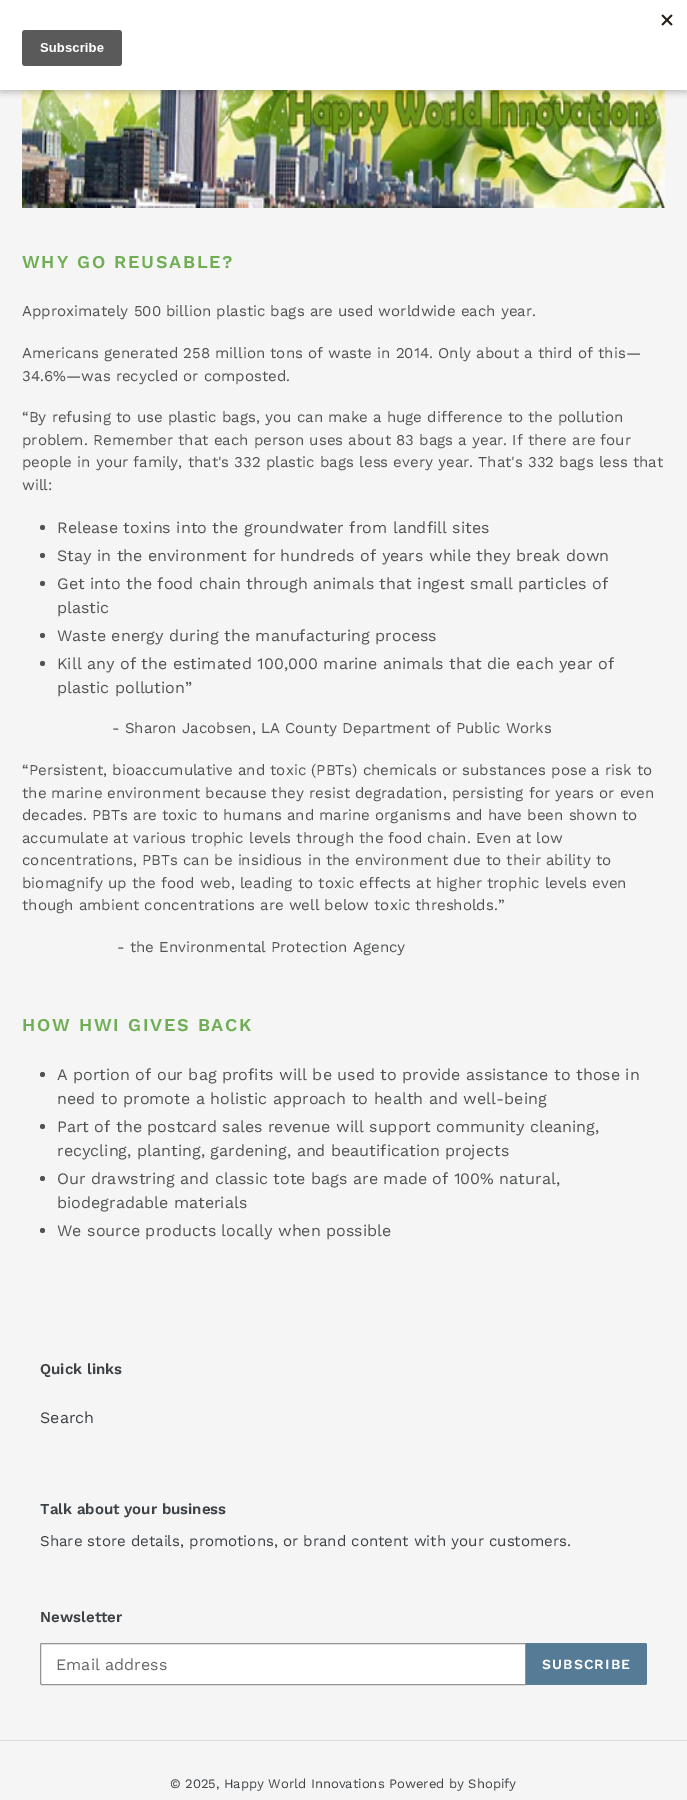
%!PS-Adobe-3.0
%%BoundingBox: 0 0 687 1800
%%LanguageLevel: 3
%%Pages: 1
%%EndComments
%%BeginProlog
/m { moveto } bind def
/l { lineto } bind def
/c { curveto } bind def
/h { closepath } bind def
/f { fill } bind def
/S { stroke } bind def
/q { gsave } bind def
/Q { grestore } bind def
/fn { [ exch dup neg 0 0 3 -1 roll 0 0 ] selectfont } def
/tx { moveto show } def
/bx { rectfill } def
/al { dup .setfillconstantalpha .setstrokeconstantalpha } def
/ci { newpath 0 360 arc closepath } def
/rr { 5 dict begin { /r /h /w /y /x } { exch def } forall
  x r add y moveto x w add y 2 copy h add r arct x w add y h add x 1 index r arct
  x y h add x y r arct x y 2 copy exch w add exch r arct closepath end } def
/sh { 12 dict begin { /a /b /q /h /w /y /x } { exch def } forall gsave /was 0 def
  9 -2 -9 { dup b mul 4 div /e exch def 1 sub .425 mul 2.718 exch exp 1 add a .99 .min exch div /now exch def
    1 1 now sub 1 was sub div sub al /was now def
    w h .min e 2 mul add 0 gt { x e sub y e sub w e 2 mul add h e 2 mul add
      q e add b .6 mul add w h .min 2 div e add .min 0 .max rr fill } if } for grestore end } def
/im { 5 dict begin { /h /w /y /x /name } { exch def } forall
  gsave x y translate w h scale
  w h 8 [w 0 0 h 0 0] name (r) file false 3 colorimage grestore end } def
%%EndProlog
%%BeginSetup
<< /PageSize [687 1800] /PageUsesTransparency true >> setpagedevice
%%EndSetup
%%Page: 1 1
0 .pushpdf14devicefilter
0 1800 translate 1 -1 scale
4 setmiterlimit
0.961 setgray
0 0 687 1800 bx
(image1.raw) 22 90 643 118 im
0 setgray
0 3 687 90 0 3 0.2 sh
1 setgray
0 0 687 90 bx
(image0.raw) 22 14 651 52 im
/WorkSans-SemiBold 18 fn
0.435 0.682 0.329 setrgbcolor
22 268 m 1.75 0 (WHY GO REUSABLE?) ashow
/WorkSans-Regular 15 fn
0.318 0.325 0.329 setrgbcolor
(Approximately 500 billion plastic bags are used worldwide each year.) 22 316 tx
(Americans generated 258 million tons of waste in 2014. Only about a third of this—) 22 358 tx
(34.6%—was recycled or composted.) 22 381 tx
(“By refusing to use plastic bags, you can make a huge difference to the pollution) 22 422 tx
(problem. Remember that each person uses about 83 bags a year. If there are four) 22 445 tx
(people in your family, that's 332 plastic bags less every year. That's 332 bags less that) 22 467 tx
(will:) 22 490 tx
42.5 527.5 2.5 ci f
/WorkSans-Regular 16 fn
(Release toxins into the groundwater from landfill sites) 57 533 tx
42.5 555.5 2.5 ci f
(Stay in the environment for hundreds of years while they break down) 57 561 tx
42.5 583.5 2.5 ci f
(Get into the food chain through animals that ingest small particles of) 57 589 tx
(plastic) 57 613 tx
42.5 635.5 2.5 ci f
(Waste energy during the manufacturing process) 57 641 tx
42.5 663.5 2.5 ci f
(Kill any of the estimated 100,000 marine animals that die each year of) 57 669 tx
(plastic pollution”) 57 693 tx
/WorkSans-Regular 15 fn
(- Sharon Jacobsen, LA County Department of Public Works) 112 733 tx
(“Persistent, bioaccumulative and toxic \(PBTs\) chemicals or substances pose a risk to) 22 775 tx
(the marine environment because they resist degradation, persisting for years or even) 22 798 tx
(decades. PBTs are toxic to humans and marine organisms and have been shown to) 22 820 tx
(accumulate at various trophic levels through the food chain. Even at low) 22 843 tx
(concentrations, PBTs can be insidious in the environment due to their ability to) 22 865 tx
(biomagnify up the food web, leading to toxic effects at higher trophic levels even) 22 888 tx
(though ambient concentrations are well below toxic thresholds.”) 22 910 tx
(- the Environmental Protection Agency) 117 952 tx
/WorkSans-SemiBold 18 fn
0.435 0.682 0.329 setrgbcolor
22 1031 m 1.75 0 (HOW HWI GIVES BACK) ashow
0.318 0.325 0.329 setrgbcolor
42.5 1074.5 2.5 ci f
/WorkSans-Regular 16 fn
(A portion of our bag profits will be used to provide assistance to those in) 57 1080 tx
(need to promote a holistic approach to health and well-being) 57 1104 tx
42.5 1126.5 2.5 ci f
(Part of the postcard sales revenue will support community cleaning,) 57 1132 tx
(recycling, planting, gardening, and beautification projects) 57 1156 tx
42.5 1178.5 2.5 ci f
(Our drawstring and classic tote bags are made of 100% natural,) 57 1184 tx
(biodegradable materials) 57 1208 tx
42.5 1230.5 2.5 ci f
(We source products locally when possible) 57 1236 tx
/WorkSans-SemiBold 15 fn
0.239 0.259 0.275 setrgbcolor
(Quick links) 40 1374 tx
/WorkSans-Regular 16 fn
(Search) 40 1423 tx
/WorkSans-SemiBold 15 fn
(Talk about your business) 40 1514 tx
/WorkSans-Regular 15 fn
(Share store details, promotions, or brand content with your customers.) 40 1546 tx
/WorkSans-SemiBold 15 fn
(Newsletter) 40 1622 tx
1 setgray
42 1643.5 m 525.5 1643.5 l 525.5 1684.5 l 42 1684.5 l 41 1684.5 40.5 1684 40.5 1683 c 40.5 1645 l 40.5 1644 41 1643.5 42 1643.5 c h q f Q
0.58 setgray
S
/WorkSans-Regular 16 fn
0.4 setgray
(Email address) 56 1670 tx
0.333 0.482 0.592 setrgbcolor
526 1643 m 645 1643 l 646 1643 647 1644 647 1645 c 647 1683 l 647 1684 646 1685 645 1685 c 526 1685 l h f
/WorkSans-SemiBold 14 fn
1 setgray
542 1669 m 1.1 0 (SUBSCRIBE) ashow
0.863 setgray
0 1740 687 1 bx
/WorkSans-Regular 13 fn
0.239 0.259 0.275 setrgbcolor
(© 2025, Happy World Innovations Powered by Shopify) 170 1788 tx
.poppdf14devicefilter showpage
%%EOF
